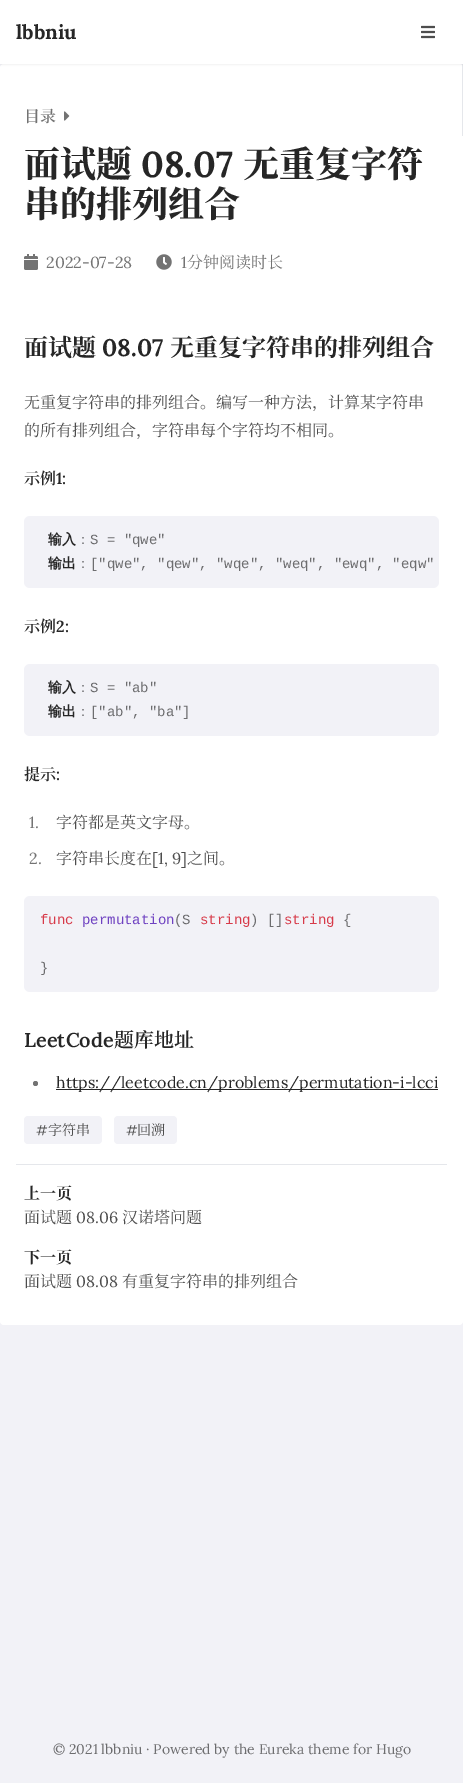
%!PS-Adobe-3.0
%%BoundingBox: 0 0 463 1783
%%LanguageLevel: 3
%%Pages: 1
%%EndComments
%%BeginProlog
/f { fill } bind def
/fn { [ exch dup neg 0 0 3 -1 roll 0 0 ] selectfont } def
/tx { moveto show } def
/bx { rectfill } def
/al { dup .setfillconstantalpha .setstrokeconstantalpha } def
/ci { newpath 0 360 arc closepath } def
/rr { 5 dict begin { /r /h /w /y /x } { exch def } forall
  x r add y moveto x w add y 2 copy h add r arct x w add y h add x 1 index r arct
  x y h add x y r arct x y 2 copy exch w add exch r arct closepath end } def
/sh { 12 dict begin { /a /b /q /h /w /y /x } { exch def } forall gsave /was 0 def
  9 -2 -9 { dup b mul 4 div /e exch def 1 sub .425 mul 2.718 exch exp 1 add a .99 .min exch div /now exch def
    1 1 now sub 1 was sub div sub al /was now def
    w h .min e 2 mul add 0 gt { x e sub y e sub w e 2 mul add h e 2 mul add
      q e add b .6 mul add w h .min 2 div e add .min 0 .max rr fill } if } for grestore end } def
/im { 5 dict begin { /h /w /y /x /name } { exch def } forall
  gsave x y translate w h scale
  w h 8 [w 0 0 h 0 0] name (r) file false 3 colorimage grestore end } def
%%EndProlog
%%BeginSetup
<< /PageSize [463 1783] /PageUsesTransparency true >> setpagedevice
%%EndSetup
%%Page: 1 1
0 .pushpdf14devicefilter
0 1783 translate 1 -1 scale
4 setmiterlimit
0.949 0.949 0.969 setrgbcolor
0 0 463 1783 bx
1 setgray
0 64 463 1261 4 rr f
0.898 0.906 0.922 setrgbcolor
462 64 1 72 bx
0 setgray
0 1 463 64 0 1 0.05 sh
1 setgray
0 0 463 64 bx
/Lora-Bold 20 fn
0.149 setgray
(lbbniu) 16 39 tx
(image0.raw) 421 25 14 14 im
/NotoSerifSC-SemiBold 16 fn
0.451 setgray
(目录) 24 122 tx
(image1.raw) 64 111 6 10 im
/NotoSerifSC-ExtraBold 36 fn
0.149 setgray
(面试题) 24 177 tx
/Lora-Bold 36 fn
(08.07) 141 177 tx
/NotoSerifSC-ExtraBold 36 fn
(无重复字符) 243 177 tx
(串的排列组合) 24 217 tx
(image2.raw) 24 254 14 16 im
/Lora-Regular 16 fn
0.451 setgray
(2022-07-28) 46 268 tx
(image3.raw) 156 254 16 16 im
(1) 181 268 tx
/NotoSerifSC-Regular 16 fn
(分钟阅读时长) 187 268 tx
/NotoSerifSC-Bold 24 fn
0.149 setgray
(面试题) 24 356 tx
/Lora-Bold 24 fn
(08.07) 102 356 tx
/NotoSerifSC-Bold 24 fn
(无重复字符串的排列组合) 170 356 tx
/NotoSerifSC-Regular 16 fn
0.302 setgray
(无重复字符串的排列组合。编写一种方法，计算某字符串) 24 408 tx
(的所有排列组合，字符串每个字符均不相同。) 24 436 tx
/NotoSerifSC-SemiBold 16 fn
0.149 setgray
(示例) 24 484 tx
/Lora-SemiBold 16 fn
(1:) 56 484 tx
0.949 0.949 0.969 setrgbcolor
24 516 415 72 6 rr f
/WenQuanYiZenHei-Bold 14 fn
0.149 setgray
(输入) 48 544 tx
/WenQuanYiZenHei-Medium 14 fn
0.427 0.427 0.435 setrgbcolor
(：) 76 544 tx
/LiberationMono-Regular 14 fn
(S = "qwe") 90 544 tx
/WenQuanYiZenHei-Bold 14 fn
0.149 setgray
(输出) 48 568 tx
/WenQuanYiZenHei-Medium 14 fn
0.427 0.427 0.435 setrgbcolor
(：) 76 568 tx
/LiberationMono-Regular 14 fn
(["qwe", "qew", "wqe", "weq", "ewq", "eqw") 90 568 tx
/NotoSerifSC-SemiBold 16 fn
0.149 setgray
(示例) 24 632 tx
/Lora-SemiBold 16 fn
(2:) 56 632 tx
0.949 0.949 0.969 setrgbcolor
24 664 415 72 6 rr f
/WenQuanYiZenHei-Bold 14 fn
0.149 setgray
(输入) 48 692 tx
/WenQuanYiZenHei-Medium 14 fn
0.427 0.427 0.435 setrgbcolor
(：) 76 692 tx
/LiberationMono-Regular 14 fn
(S = "ab") 90 692 tx
/WenQuanYiZenHei-Bold 14 fn
0.149 setgray
(输出) 48 716 tx
/WenQuanYiZenHei-Medium 14 fn
0.427 0.427 0.435 setrgbcolor
(：) 76 716 tx
/LiberationMono-Regular 14 fn
(["ab", "ba"]) 90 716 tx
/NotoSerifSC-SemiBold 16 fn
0.149 setgray
(提示) 24 780 tx
/Lora-SemiBold 16 fn
(:) 56 780 tx
/Lora-Regular 16 fn
0.451 setgray
(1.) 29 828 tx
/NotoSerifSC-Regular 16 fn
0.302 setgray
(字符都是英文字母。) 56 828 tx
/Lora-Regular 16 fn
0.451 setgray
(2.) 29 864 tx
/NotoSerifSC-Regular 16 fn
0.302 setgray
(字符串长度在) 56 864 tx
/Lora-Regular 16 fn
([1, 9]) 152 864 tx
/NotoSerifSC-Regular 16 fn
(之间。) 187 864 tx
0.949 0.949 0.969 setrgbcolor
24 896 415 96 6 rr f
/LiberationMono-Regular 14 fn
0.843 0.227 0.286 setrgbcolor
(func) 40 924 tx
0.435 0.259 0.757 setrgbcolor
(permutation) 82 924 tx
0.427 0.427 0.435 setrgbcolor
(\(S) 174 924 tx
0.843 0.227 0.286 setrgbcolor
(string) 200 924 tx
0.427 0.427 0.435 setrgbcolor
(\) []) 250 924 tx
0.843 0.227 0.286 setrgbcolor
(string) 284 924 tx
0.427 0.427 0.435 setrgbcolor
({) 343 924 tx
(}) 40 972 tx
/Lora-SemiBold 20 fn
0.149 setgray
(LeetCode) 24 1047 tx
/NotoSerifSC-SemiBold 20 fn
(题库地址) 114 1047 tx
0.451 setgray
35.5 1083.5 2.5 ci f
0.149 setgray
56 1089 382 1 bx
/Lora-Regular 16 fn
(https://leetcode.cn/problems/permutation-i-lcci) 56 1088 tx
0.949 0.949 0.969 setrgbcolor
24 1116 78 28 4 rr f
/Lora-Regular 14 fn
0.302 setgray
(#) 36 1135 tx
/NotoSerifSC-Regular 14 fn
(字符串) 48 1135 tx
0.949 0.949 0.969 setrgbcolor
114 1116 63 28 4 rr f
/Lora-Regular 14 fn
0.302 setgray
(#) 126 1135 tx
/NotoSerifSC-Regular 14 fn
(回溯) 137 1135 tx
0.898 0.906 0.922 setrgbcolor
16 1164 431 1 bx
/NotoSerifSC-Bold 16 fn
0.149 setgray
(上一页) 24 1199 tx
/NotoSerifSC-Regular 16 fn
0.302 setgray
(面试题) 24 1223 tx
/Lora-Regular 16 fn
(08.06) 76 1223 tx
/NotoSerifSC-Regular 16 fn
(汉诺塔问题) 122 1223 tx
/NotoSerifSC-Bold 16 fn
0.149 setgray
(下一页) 24 1263 tx
/NotoSerifSC-Regular 16 fn
0.302 setgray
(面试题) 24 1287 tx
/Lora-Regular 16 fn
(08.08) 76 1287 tx
/NotoSerifSC-Regular 16 fn
(有重复字符串的排列组合) 122 1287 tx
/Lora-Regular 14 fn
0.427 0.427 0.435 setrgbcolor
(© 2021 lbbniu · Powered by the Eureka theme for Hugo) 53 1754 tx
.poppdf14devicefilter showpage
%%EOF
